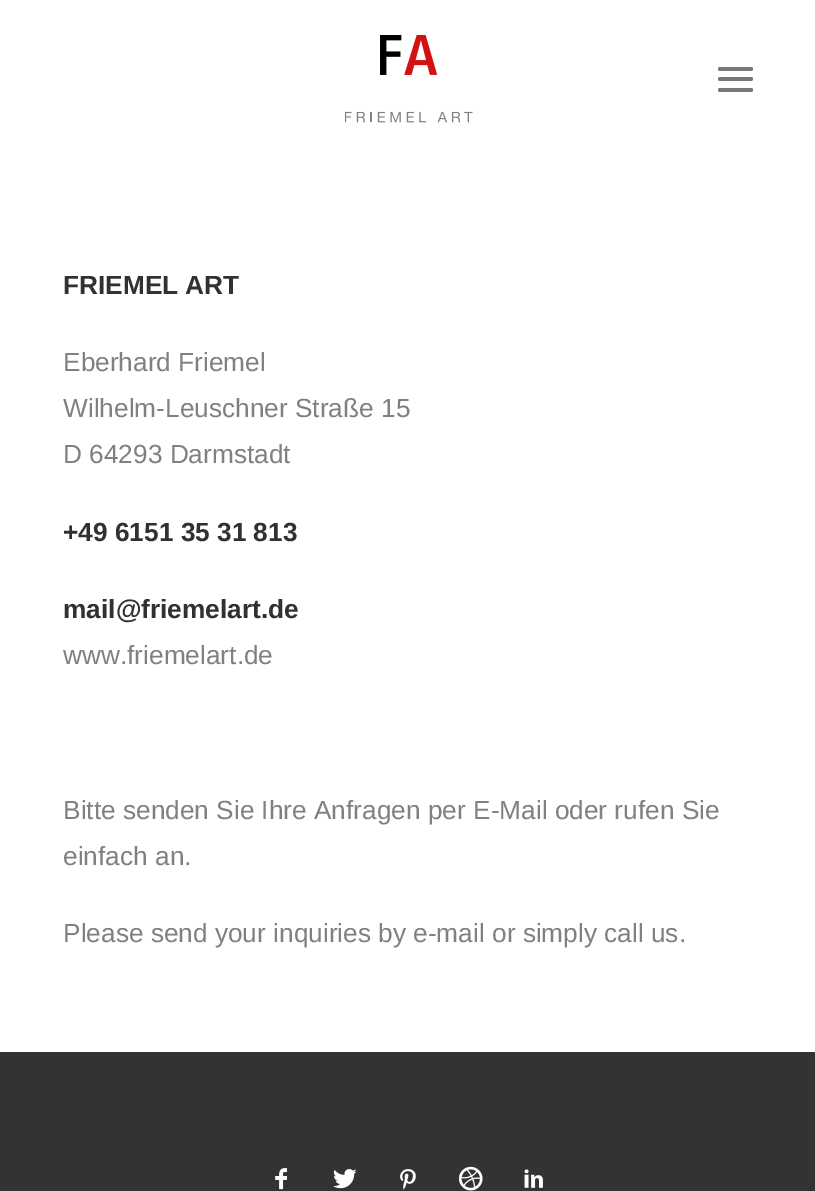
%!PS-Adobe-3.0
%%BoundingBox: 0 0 815 1191
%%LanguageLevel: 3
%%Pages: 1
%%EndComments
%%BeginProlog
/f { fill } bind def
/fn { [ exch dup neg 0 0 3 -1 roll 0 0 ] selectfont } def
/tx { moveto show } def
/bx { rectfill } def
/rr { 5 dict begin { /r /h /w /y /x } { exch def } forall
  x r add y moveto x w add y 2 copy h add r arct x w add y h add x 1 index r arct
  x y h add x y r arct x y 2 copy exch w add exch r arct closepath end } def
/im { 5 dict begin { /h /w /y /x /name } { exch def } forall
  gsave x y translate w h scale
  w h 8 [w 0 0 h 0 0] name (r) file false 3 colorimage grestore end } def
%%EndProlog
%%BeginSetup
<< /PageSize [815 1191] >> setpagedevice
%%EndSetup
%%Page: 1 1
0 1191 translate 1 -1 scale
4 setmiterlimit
1 setgray
0 0 815 1191 bx
(image0.raw) 345 35 128 88 im
0.467 setgray
718 77 35 4 2 rr f
718 67 35 4 2 rr f
718 88 35 4 2 rr f
/LiberationSans-Bold 26.25 fn
0.188 0.192 0.2 setrgbcolor
(FRIEMEL ART) 63 294 tx
/LiberationSans-Regular 26.25 fn
0.502 setgray
(Eberhard Friemel) 63 371 tx
(Wilhelm-Leuschner Straße 15) 63 417 tx
(D 64293 Darmstadt) 63 463 tx
/LiberationSans-Bold 26.25 fn
0.188 0.192 0.2 setrgbcolor
(+49 6151 35 31 813) 63 541 tx
(mail@friemelart.de) 63 618 tx
/LiberationSans-Regular 26.25 fn
0.502 setgray
(www.friemelart.de) 63 664 tx
(Bitte senden Sie Ihre Anfragen per E-Mail oder rufen Sie) 63 819 tx
(einfach an.) 63 865 tx
(Please send your inquiries by e-mail or simply call us.) 63 942 tx
0.2 setgray
0 1052 815 139 bx
(image1.raw) 275 1168 12 22 im
(image2.raw) 333 1169 24 20 im
(image3.raw) 400 1169 16 21 im
(image4.raw) 458 1166 25 25 im
(image5.raw) 524 1169 19 19 im
showpage
%%EOF
